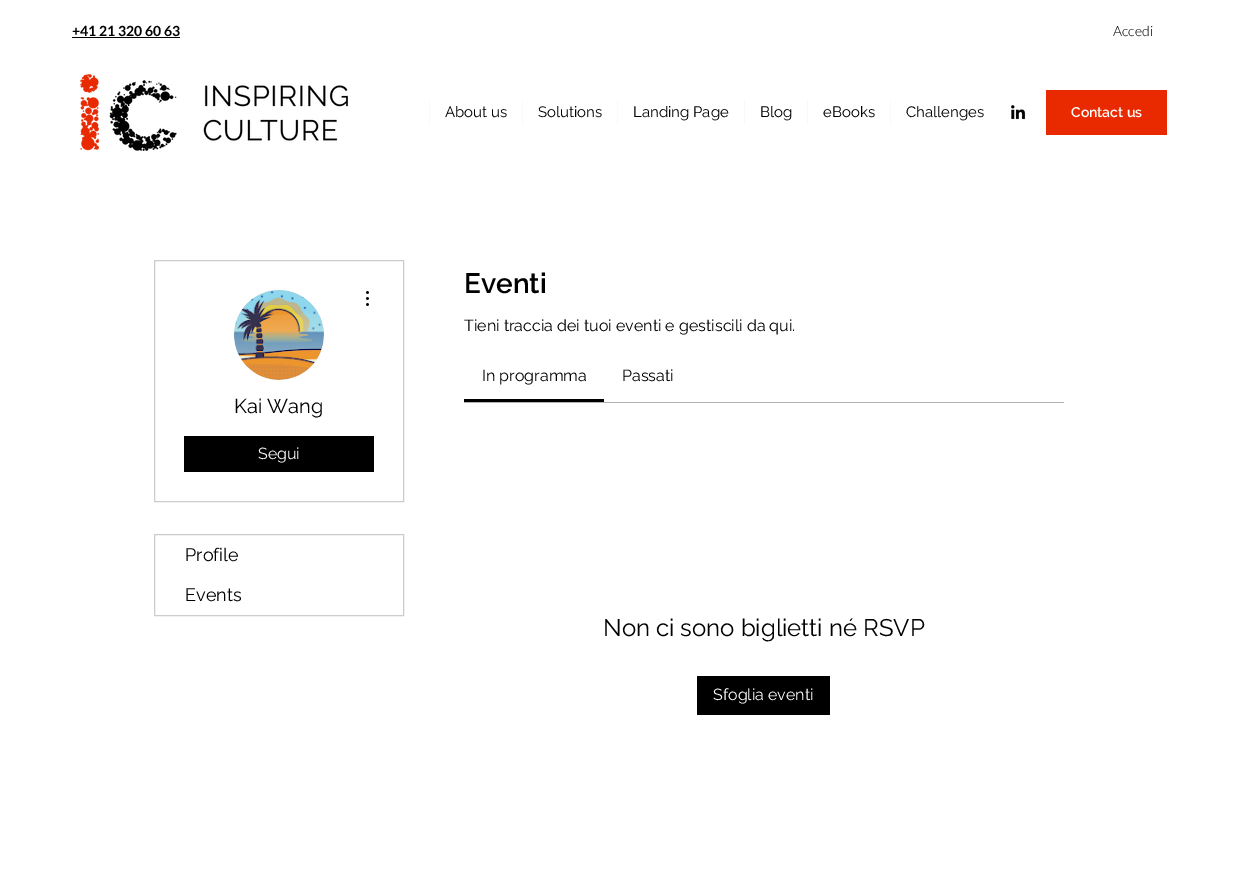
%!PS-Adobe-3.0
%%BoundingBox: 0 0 1247 895
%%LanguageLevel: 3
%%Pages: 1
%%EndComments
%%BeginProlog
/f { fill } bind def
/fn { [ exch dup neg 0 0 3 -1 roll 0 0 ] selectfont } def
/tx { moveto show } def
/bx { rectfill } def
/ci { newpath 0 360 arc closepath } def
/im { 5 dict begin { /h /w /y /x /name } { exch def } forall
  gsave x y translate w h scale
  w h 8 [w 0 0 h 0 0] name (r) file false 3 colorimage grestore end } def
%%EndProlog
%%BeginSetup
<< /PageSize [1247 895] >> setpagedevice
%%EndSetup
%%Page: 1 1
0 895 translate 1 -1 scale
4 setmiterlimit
1 setgray
0 0 1247 895 bx
/Lato-Bold 14 fn
0 setgray
(+41 21 320 60 63) 72 36 tx
72 37 108 1 bx
/Lato-Light 14 fn
(Accedi) 1113 36 tx
(image0.raw) 80 74 268 77 im
0.976 setgray
429 100 1 25 bx
/Raleway-Regular 15 fn
0 setgray
(About us) 445 117 tx
0.976 setgray
522 100 1 25 bx
0 setgray
(Solutions) 538 117 tx
0.976 setgray
617 100 1 25 bx
0 setgray
(Landing Page) 633 117 tx
0.976 setgray
744 100 1 25 bx
0 setgray
(Blog) 760 117 tx
0.976 setgray
807 100 1 25 bx
0 setgray
(eBooks) 823 117 tx
0.976 setgray
890 100 1 25 bx
0 setgray
(Challenges) 906 117 tx
(image1.raw) 1011 105 15 15 im
0.914 0.165 0 setrgbcolor
1046 90 121 45 bx
/Raleway-SemiBold 14 fn
1 setgray
(Contact us) 1071 117 tx
0.8 setgray
154.5 260.5 249 241 rectstroke
0.847 setgray
279 335 45 ci f
(image2.raw) 234 290 90 90 im
(image3.raw) 366 291 3 15 im
/Raleway-Regular 20 fn
0 setgray
(Kai Wang) 234 413 tx
184 436 190 36 bx
/Raleway-Regular 16 fn
1 setgray
(Segui) 258 459 tx
0.8 setgray
154.5 534.5 249 81 rectstroke
/Raleway-Regular 18 fn
0 setgray
(Profile) 185 561 tx
(Events) 185 601 tx
/Raleway-SemiBold 28 fn
(Eventi) 464 293 tx
/Raleway-Regular 16 fn
(Tieni traccia dei tuoi eventi e gestiscili da qui.) 464 331 tx
464 399 140 3 bx
(In programma) 482 381 tx
(Passati) 622 381 tx
0.702 setgray
464 402 600 1 bx
/Raleway-Regular 24 fn
0 setgray
(Non ci sono biglietti né RSVP) 603 636 tx
697 676 133 39 bx
/Raleway-Regular 16 fn
1 setgray
(Sfoglia eventi) 713 700 tx
showpage
%%EOF
